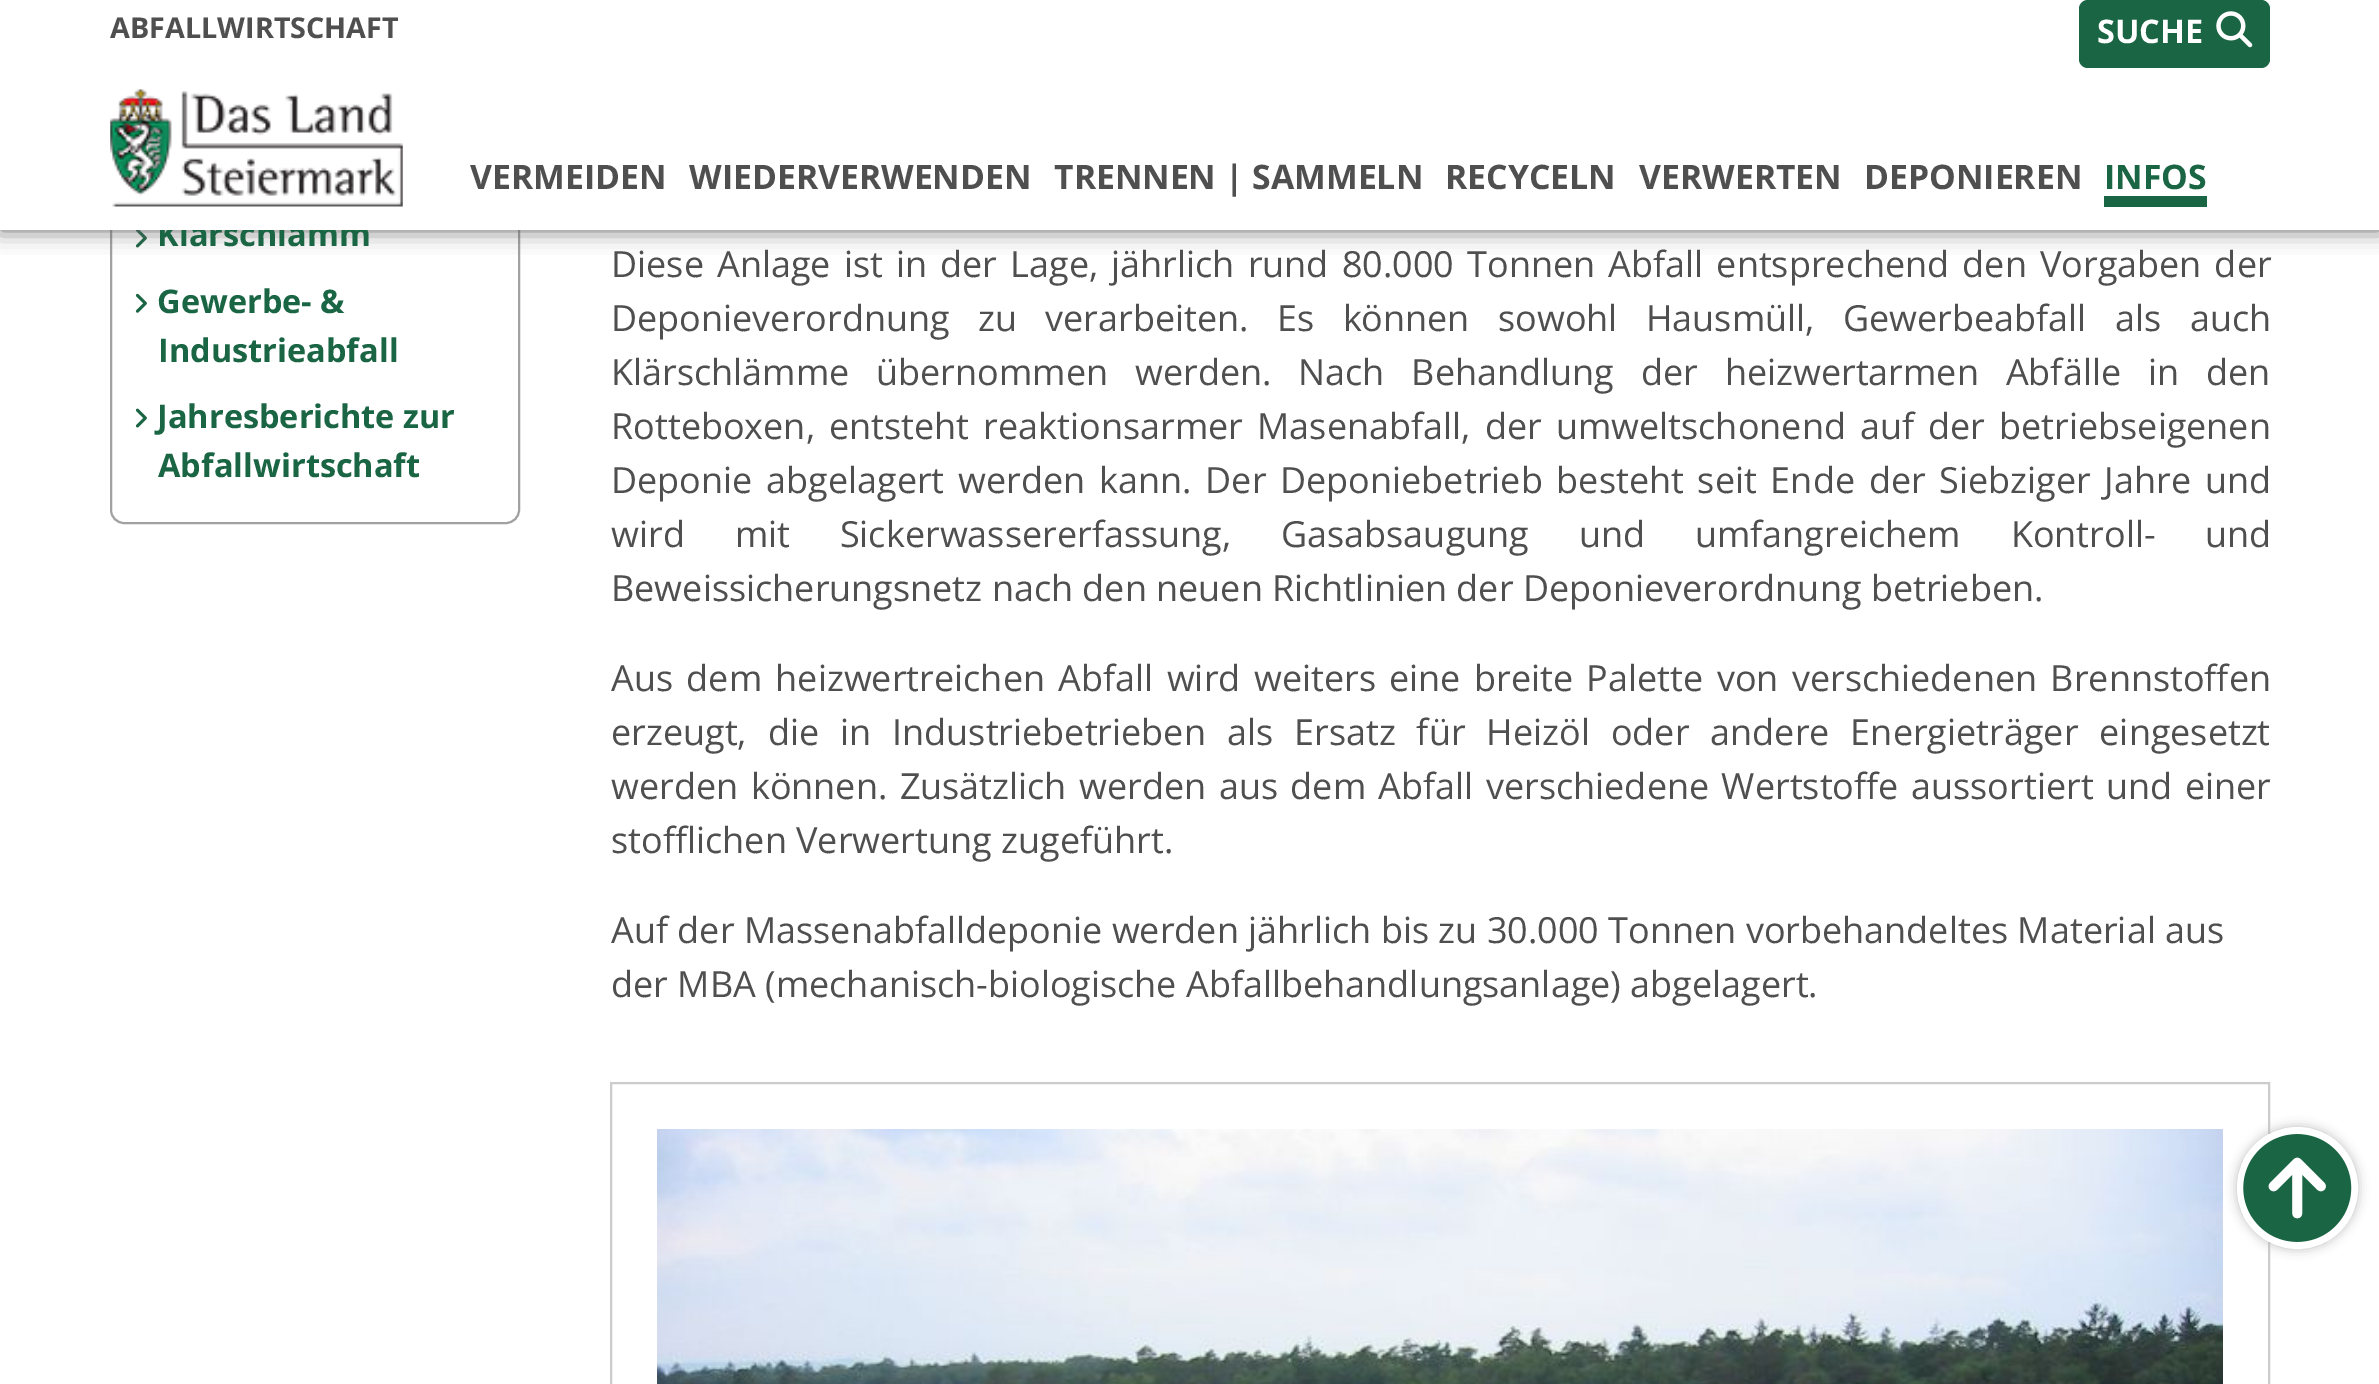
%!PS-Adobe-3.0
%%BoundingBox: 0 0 2379 1384
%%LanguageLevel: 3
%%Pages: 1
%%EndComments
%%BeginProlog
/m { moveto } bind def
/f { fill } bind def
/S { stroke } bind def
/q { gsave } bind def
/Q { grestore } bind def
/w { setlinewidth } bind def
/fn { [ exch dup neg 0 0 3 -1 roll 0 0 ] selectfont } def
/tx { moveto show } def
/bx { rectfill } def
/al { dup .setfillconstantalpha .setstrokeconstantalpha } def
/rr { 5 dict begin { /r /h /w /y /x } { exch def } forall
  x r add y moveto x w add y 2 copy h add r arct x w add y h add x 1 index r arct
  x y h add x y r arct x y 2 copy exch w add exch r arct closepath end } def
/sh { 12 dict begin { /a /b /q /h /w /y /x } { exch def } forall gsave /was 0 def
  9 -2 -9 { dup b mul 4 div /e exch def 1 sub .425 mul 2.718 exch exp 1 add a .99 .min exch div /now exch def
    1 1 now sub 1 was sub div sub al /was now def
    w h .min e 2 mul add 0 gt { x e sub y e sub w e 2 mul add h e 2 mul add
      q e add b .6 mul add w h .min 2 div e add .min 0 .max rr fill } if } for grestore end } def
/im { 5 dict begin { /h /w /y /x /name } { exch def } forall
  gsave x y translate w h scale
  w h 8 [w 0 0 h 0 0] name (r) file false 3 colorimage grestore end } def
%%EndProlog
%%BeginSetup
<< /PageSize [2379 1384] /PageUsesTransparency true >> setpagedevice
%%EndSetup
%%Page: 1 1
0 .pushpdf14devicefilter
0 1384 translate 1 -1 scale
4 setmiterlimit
1 setgray
0 0 2379 1384 bx
0.631 setgray
2 w
111 -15 408 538 13 rr S
(image2.raw) 135 230 12 18 im
0.396 setgray
0 0 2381 230 0 11 1 sh
/OpenSans-Bold 32.5 fn
0.102 0.396 0.267 setrgbcolor
(Klärschlamm) 157 246 tx
1 setgray
0 0 2379 230 bx
/OpenSans-Bold 28.75 fn
0.31 setgray
(ABFALLWIRTSCHAFT) 110 38 tx
0.102 0.396 0.267 setrgbcolor
2079 0 191 68 9 rr f
/OpenSans-Bold 32.5 fn
1 setgray
(SUCHE) 2097 43 tx
(image0.raw) 2216 11 37 37 im
(image1.raw) 110 89 293 118 im
/OpenSans-Bold 33.75 fn
0.31 setgray
(VERMEIDEN) 470 189 tx
(WIEDERVERWENDEN) 689 189 tx
(TRENNEN | SAMMELN) 1054 189 tx
(RECYCELN) 1445 189 tx
(VERWERTEN) 1639 189 tx
(DEPONIEREN) 1864 189 tx
0.102 0.396 0.267 setrgbcolor
(INFOS) 2104 189 tx
2104 196 103 11 bx
(image3.raw) 135 293 12 20 im
/OpenSans-Bold 32.5 fn
(Gewerbe- &) 157 313 tx
(Industrieabfall) 158 362 tx
(image4.raw) 135 408 12 20 im
(Jahresberichte zur) 157 428 tx
(Abfallwirtschaft) 158 477 tx
/OpenSans-Regular 36 fn
0.31 setgray
611 277 m 3.75 0 32 (Diese Anlage ist in der Lage, jährlich rund 80.000 Tonnen Abfall entsprechend den Vorgaben der) widthshow
611 331 m 19 0 32 (Deponieverordnung zu verarbeiten. Es können sowohl Hausmüll, Gewerbeabfall als auch) widthshow
611 385 m 17.5 0 32 (Klärschlämme übernommen werden. Nach Behandlung der heizwertarmen Abfälle in den) widthshow
611 439 m 4.75 0 32 (Rotteboxen, entsteht reaktionsarmer Masenabfall, der umweltschonend auf der betriebseigenen) widthshow
611 493 m 4.4 0 32 (Deponie abgelagert werden kann. Der Deponiebetrieb besteht seit Ende der Siebziger Jahre und) widthshow
611 547 m 40.5 0 32 (wird mit Sickerwassererfassung, Gasabsaugung und umfangreichem Kontroll- und) widthshow
(Beweissicherungsnetz nach den neuen Richtlinien der Deponieverordnung betrieben.) 611 601 tx
611 691 m 4 0 32 (Aus dem heizwertreichen Abfall wird weiters eine breite Palette von verschiedenen Brennstoffen) widthshow
611 745 m 11.6 0 32 (erzeugt, die in Industriebetrieben als Ersatz für Heizöl oder andere Energieträger eingesetzt) widthshow
611 799 m 3.1 0 32 (werden können. Zusätzlich werden aus dem Abfall verschiedene Wertstoffe aussortiert und einer) widthshow
(stofflichen Verwertung zugeführt.) 611 853 tx
(Auf der Massenabfalldeponie werden jährlich bis zu 30.000 Tonnen vorbehandeltes Material aus) 611 943 tx
(der MBA \(mechanisch-biologische Abfallbehandlungsanlage\) abgelagert.) 611 997 tx
0.8 setgray
611 1083 1658 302 rectstroke
(image5.raw) 657 1129 1566 255 im
0.737 setgray
2237 1127 121 122 60.5 5.5 1 sh
1 setgray
2240.5 1130.5 114 115 57 rr q f Q
7 w
S
(image6.raw) 2243 1134 109 108 im
.poppdf14devicefilter showpage
%%EOF
